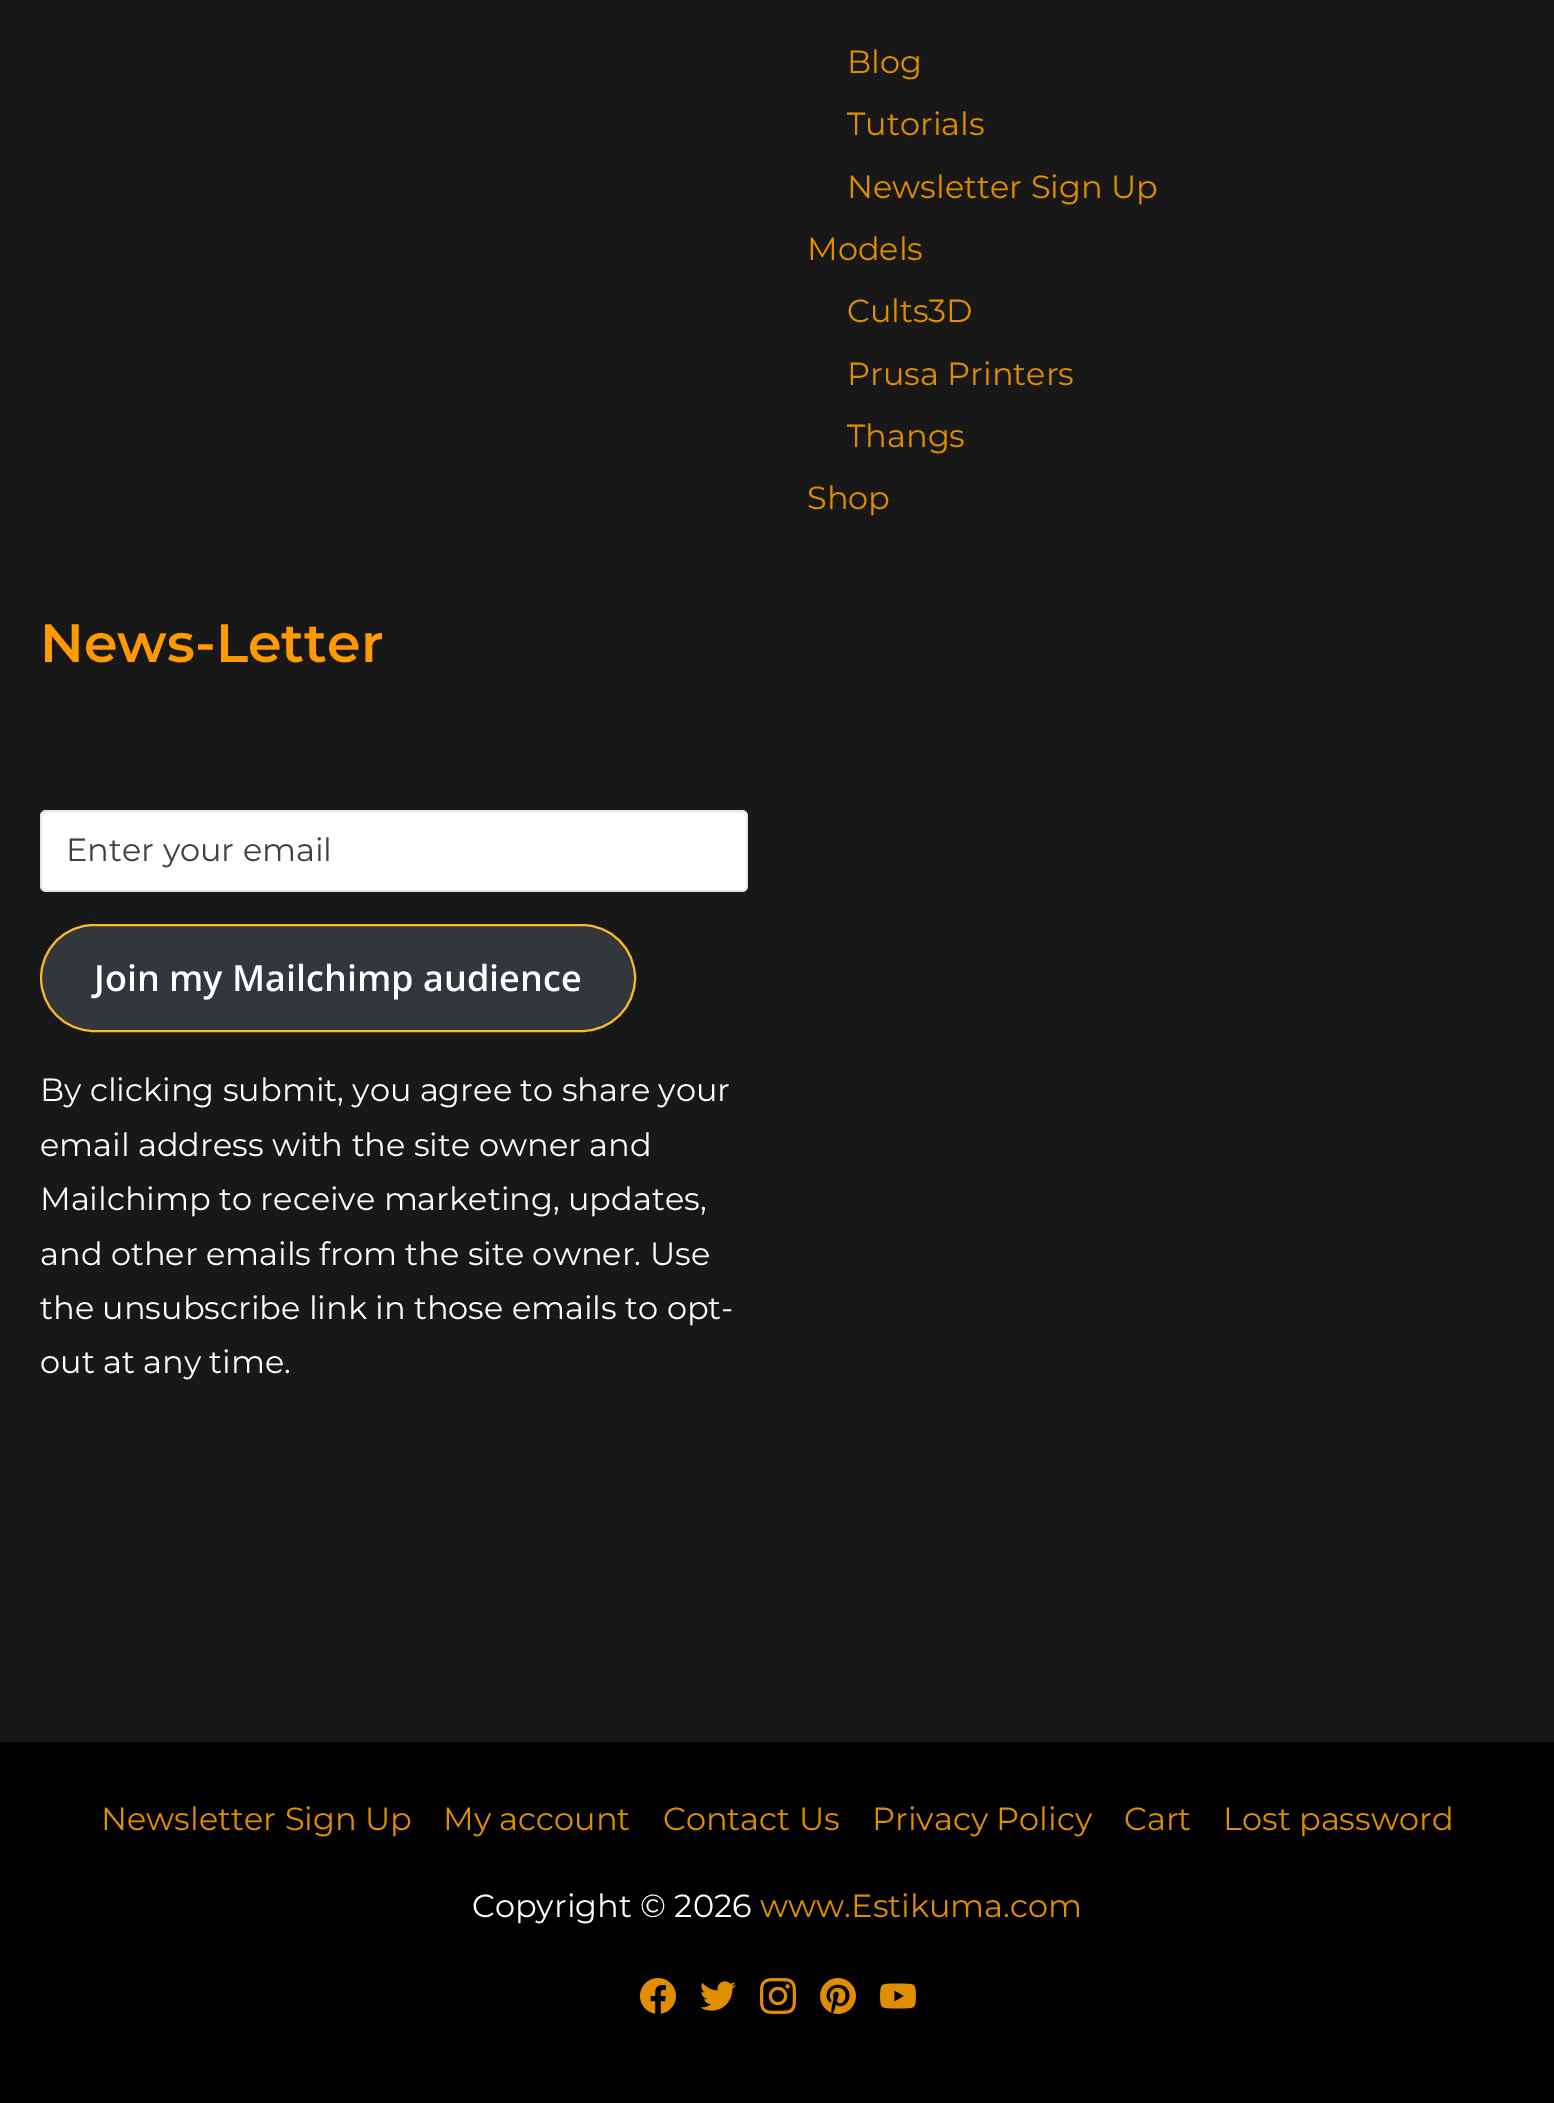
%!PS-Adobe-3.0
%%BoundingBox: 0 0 1554 2103
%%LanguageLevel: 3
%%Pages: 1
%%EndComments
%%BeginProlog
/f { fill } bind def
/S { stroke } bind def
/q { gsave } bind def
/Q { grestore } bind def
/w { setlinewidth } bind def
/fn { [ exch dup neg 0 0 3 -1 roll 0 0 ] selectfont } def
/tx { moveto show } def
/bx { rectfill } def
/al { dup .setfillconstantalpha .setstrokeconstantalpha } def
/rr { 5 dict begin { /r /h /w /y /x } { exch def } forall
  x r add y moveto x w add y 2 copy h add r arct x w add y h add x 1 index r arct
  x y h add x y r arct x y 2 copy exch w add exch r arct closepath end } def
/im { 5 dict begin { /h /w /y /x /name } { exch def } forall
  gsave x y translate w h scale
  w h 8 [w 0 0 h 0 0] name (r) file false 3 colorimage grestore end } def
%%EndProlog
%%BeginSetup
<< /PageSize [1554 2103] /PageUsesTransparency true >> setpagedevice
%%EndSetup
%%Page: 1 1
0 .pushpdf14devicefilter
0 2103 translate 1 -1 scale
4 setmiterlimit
0.094 setgray
0 0 1554 2103 bx
/Montserrat-Regular 32 fn
0.878 0.557 0 setrgbcolor
(Blog) 847 73 tx
(Tutorials) 847 135 tx
(Newsletter Sign Up) 847 198 tx
(Models) 807 260 tx
(Cults3D) 847 322 tx
(Prusa Printers) 847 385 tx
(Thangs) 847 447 tx
(Shop) 807 509 tx
/Montserrat-SemiBold 54 fn
1 0.6 0 setrgbcolor
(News-Letter) 40 662 tx
1 setgray
40 810 708 82 6 rr f
0.1 al
0 setgray
2 w
41 811 706 80 5 rr S
/Montserrat-Regular 32 fn
1 al
0.251 setgray
(Enter your email) 66 861 tx
0.196 0.216 0.235 setrgbcolor
41 925 594 106 53 rr q f Q
0.984 0.722 0.161 setrgbcolor
S
/OpenSans-SemiBold 36 fn
1 setgray
(Join my Mailchimp audience) 94 991 tx
/Montserrat-Regular 32 fn
(By clicking submit, you agree to share your) 40 1101 tx
(email address with the site owner and) 40 1156 tx
(Mailchimp to receive marketing, updates,) 40 1210 tx
(and other emails from the site owner. Use) 40 1265 tx
(the unsubscribe link in those emails to opt-) 40 1319 tx
(out at any time.) 40 1373 tx
0 setgray
0 1742 1554 361 bx
0.878 0.557 0 setrgbcolor
(Newsletter Sign Up) 101 1830 tx
(My account) 443 1830 tx
(Contact Us) 663 1830 tx
(Privacy Policy) 872 1830 tx
(Cart) 1124 1830 tx
(Lost password) 1223 1830 tx
1 setgray
(Copyright © 2026) 472 1917 tx
0.878 0.557 0 setrgbcolor
(www.Estikuma.com) 760 1917 tx
(image0.raw) 640 1978 36 36 im
(image1.raw) 700 1981 36 30 im
(image2.raw) 760 1978 36 36 im
(image3.raw) 820 1978 36 36 im
(image4.raw) 880 1983 36 26 im
.poppdf14devicefilter showpage
%%EOF
